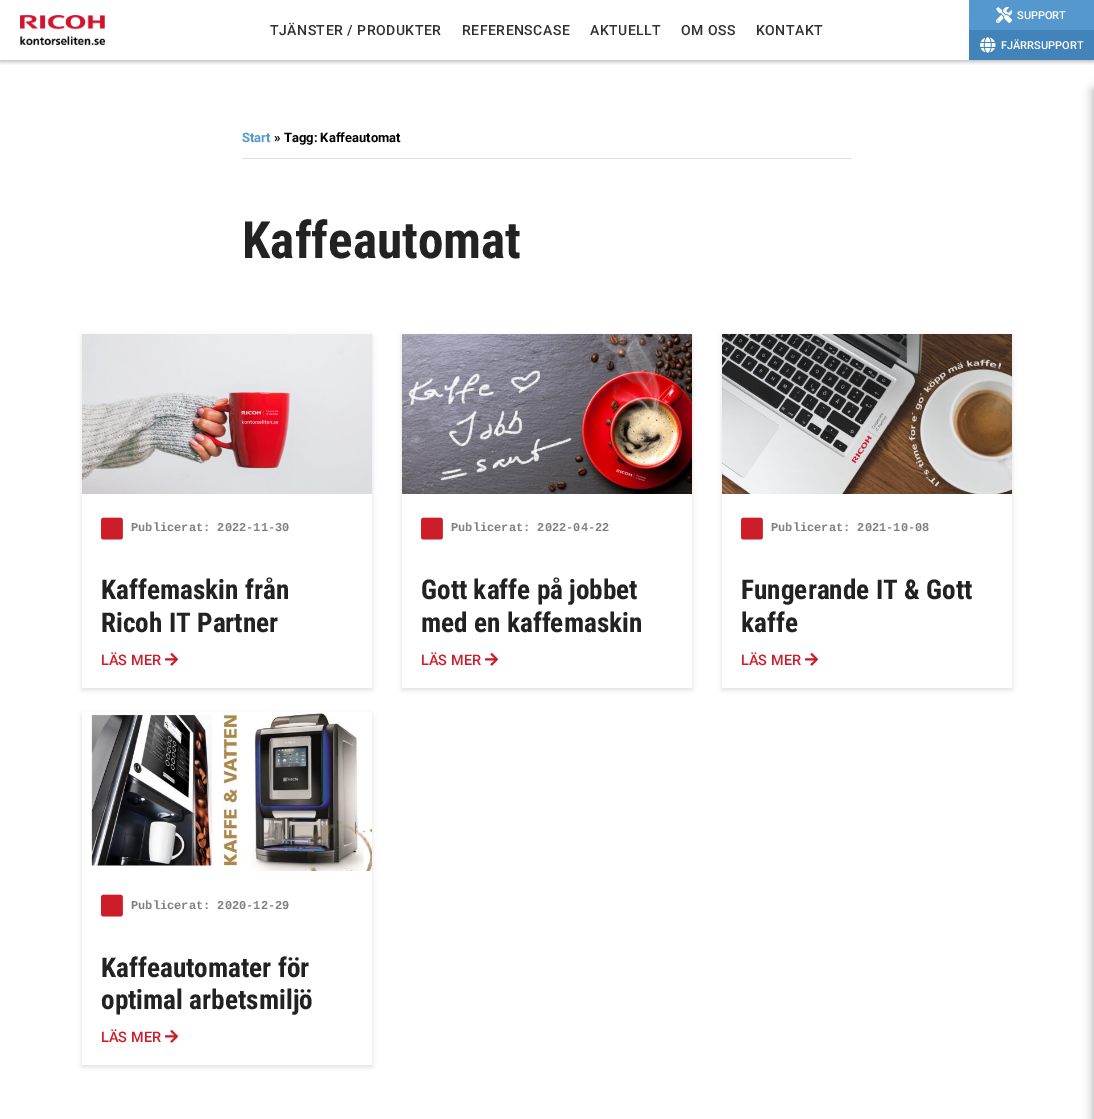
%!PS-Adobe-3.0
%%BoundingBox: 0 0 1094 1119
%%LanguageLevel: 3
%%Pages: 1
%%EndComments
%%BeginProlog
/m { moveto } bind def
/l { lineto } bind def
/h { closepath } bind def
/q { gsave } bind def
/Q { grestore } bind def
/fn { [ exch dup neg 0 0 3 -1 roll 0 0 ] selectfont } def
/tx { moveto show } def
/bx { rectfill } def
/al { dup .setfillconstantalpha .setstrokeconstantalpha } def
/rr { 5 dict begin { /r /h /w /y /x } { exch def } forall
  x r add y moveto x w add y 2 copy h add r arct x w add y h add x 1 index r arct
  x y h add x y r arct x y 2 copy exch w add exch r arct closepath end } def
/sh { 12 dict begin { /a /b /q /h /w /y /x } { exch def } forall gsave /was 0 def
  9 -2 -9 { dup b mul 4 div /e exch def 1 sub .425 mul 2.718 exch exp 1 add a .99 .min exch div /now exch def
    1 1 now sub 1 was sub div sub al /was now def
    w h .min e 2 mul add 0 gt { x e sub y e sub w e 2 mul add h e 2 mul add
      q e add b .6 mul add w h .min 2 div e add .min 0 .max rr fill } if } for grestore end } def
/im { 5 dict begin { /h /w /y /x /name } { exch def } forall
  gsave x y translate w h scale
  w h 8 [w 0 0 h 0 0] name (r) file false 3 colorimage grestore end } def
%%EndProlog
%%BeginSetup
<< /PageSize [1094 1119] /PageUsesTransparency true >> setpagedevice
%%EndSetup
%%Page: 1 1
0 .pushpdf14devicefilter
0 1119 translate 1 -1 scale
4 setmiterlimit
1 setgray
0 0 1094 1119 bx
q
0 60 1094 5 rectclip
0 setgray
0 2 1094 60 0 2 0.25 sh
Q
(image0.raw) 20 15 85 30 im
/Roboto-Medium 14 fn
0.192 setgray
270 35 m 0.5 0 (TJÄNSTER / PRODUKTER) ashow
462 35 m 0.5 0 (REFERENSCASE) ashow
590 35 m 0.5 0 (AKTUELLT) ashow
681 35 m 0.5 0 (OM OSS) ashow
756 35 m 0.5 0 (KONTAKT) ashow
0.333 0.596 0.804 setrgbcolor
969 0 125 30 bx
(image1.raw) 996 7 16 16 im
/Roboto-Medium 11 fn
1 setgray
(SUPPORT) 1017 19 tx
0.259 0.518 0.725 setrgbcolor
969 30 125 30 bx
(image2.raw) 980 37 16 16 im
1 setgray
(FJÄRRSUPPORT) 1001 49 tx
0.878 setgray
242 158 610 1 bx
/Roboto-Bold 13 fn
0.333 0.596 0.804 setrgbcolor
(Start) 242 142 tx
0 setgray
(» Tagg: Kaffeautomat) 274 142 tx
/RobotoCondensed-Bold 51.25 fn
0.133 setgray
(Kaffeautomat) 242 258 tx
q
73 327 m 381 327 l 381 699 l 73 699 l h 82 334 m 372 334 l 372 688 l 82 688 l h eoclip newpath
0 setgray
82 336 290 354 0 2.5 0.12 sh
Q
(image3.raw) 82 334 290 160 im
(image4.raw) 101 517 22 23 im
/LiberationMono-Bold 12 fn
0.502 setgray
(Publicerat: 2022-11-30) 131 531 tx
/RobotoCondensed-Bold 27.25 fn
0.133 setgray
(Kaffemaskin från) 101 599 tx
(Ricoh IT Partner) 101 632 tx
/Roboto-Medium 14.5 fn
0.804 0.114 0.169 setrgbcolor
(LÄS MER) 101 665 tx
(image5.raw) 165 653 14 13 im
q
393 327 m 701 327 l 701 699 l 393 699 l h 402 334 m 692 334 l 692 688 l 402 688 l h eoclip newpath
0 setgray
402 336 290 354 0 2.5 0.12 sh
Q
(image6.raw) 402 334 290 160 im
(image4.raw) 421 517 22 23 im
/LiberationMono-Bold 12 fn
0.502 setgray
(Publicerat: 2022-04-22) 451 531 tx
/RobotoCondensed-Bold 27.25 fn
0.133 setgray
(Gott kaffe på jobbet) 421 599 tx
(med en kaffemaskin) 421 632 tx
/Roboto-Medium 14.5 fn
0.804 0.114 0.169 setrgbcolor
(LÄS MER) 421 665 tx
(image5.raw) 485 653 14 13 im
q
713 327 m 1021 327 l 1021 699 l 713 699 l h 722 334 m 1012 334 l 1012 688 l 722 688 l h eoclip newpath
0 setgray
722 336 290 354 0 2.5 0.12 sh
Q
(image7.raw) 722 334 290 160 im
(image4.raw) 741 517 22 23 im
/LiberationMono-Bold 12 fn
0.502 setgray
(Publicerat: 2021-10-08) 771 531 tx
/RobotoCondensed-Bold 27.25 fn
0.133 setgray
(Fungerande IT & Gott) 741 599 tx
(kaffe) 741 632 tx
/Roboto-Medium 14.5 fn
0.804 0.114 0.169 setrgbcolor
(LÄS MER) 741 665 tx
(image5.raw) 805 653 14 13 im
q
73 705 m 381 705 l 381 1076 l 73 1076 l h 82 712 m 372 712 l 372 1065 l 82 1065 l h eoclip newpath
0 setgray
82 714 290 353 0 2.5 0.12 sh
Q
(image8.raw) 91 712 281 159 im
(image4.raw) 101 894 22 23 im
/LiberationMono-Bold 12 fn
0.502 setgray
(Publicerat: 2020-12-29) 131 909 tx
/RobotoCondensed-Bold 27.25 fn
0.133 setgray
(Kaffeautomater för) 101 977 tx
(optimal arbetsmiljö) 101 1009 tx
/Roboto-Medium 14.5 fn
0.804 0.114 0.169 setrgbcolor
(LÄS MER) 101 1042 tx
(image5.raw) 165 1030 14 13 im
0 setgray
1093 90 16 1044 0 5 0.32 sh
.poppdf14devicefilter showpage
%%EOF
